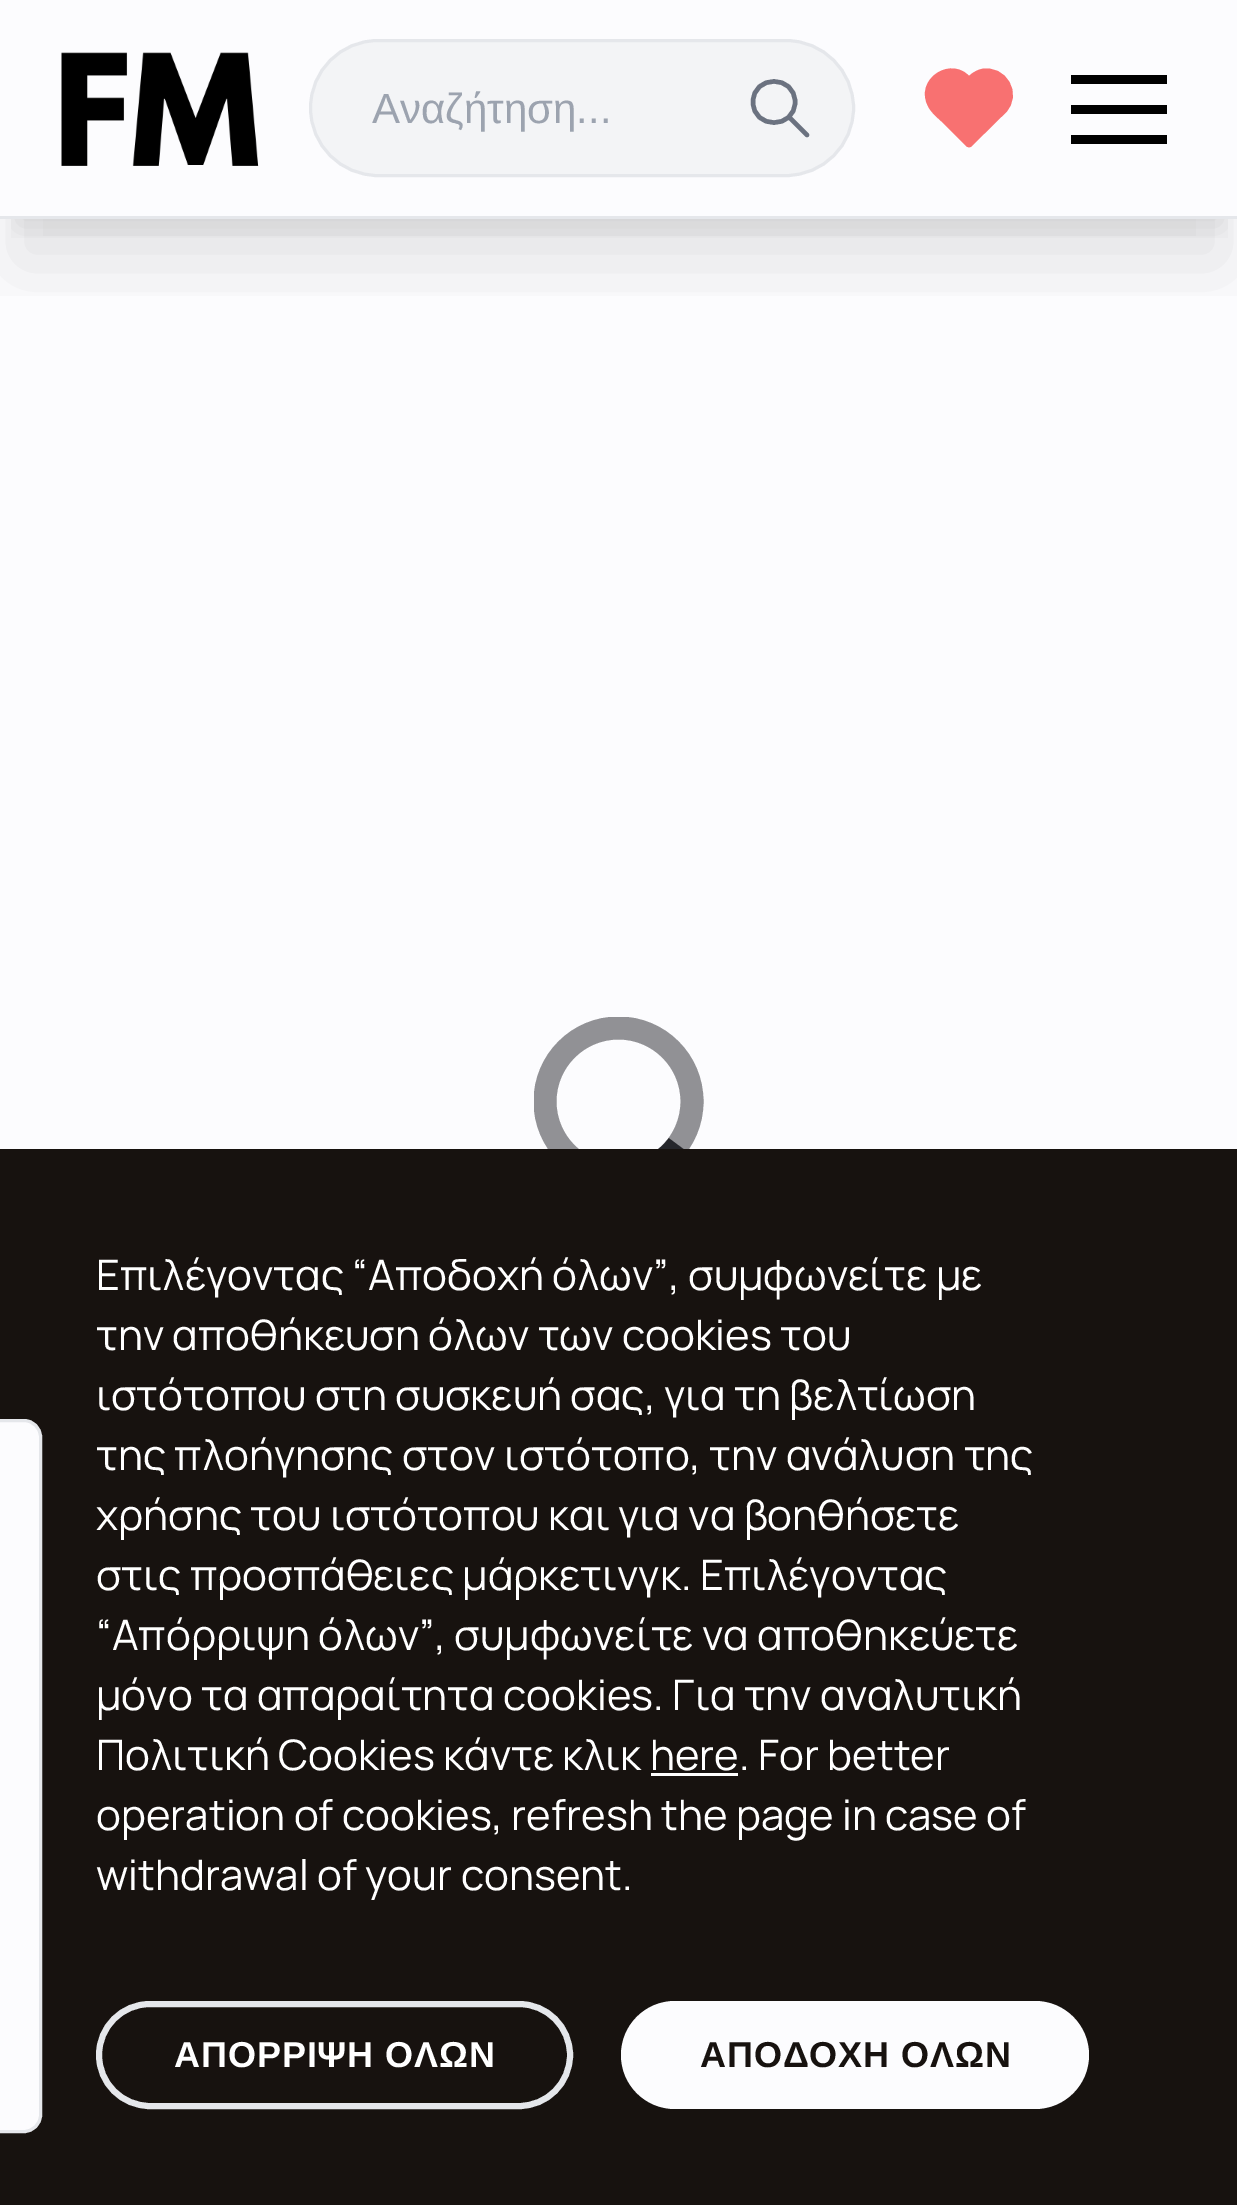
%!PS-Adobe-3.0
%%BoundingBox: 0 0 1237 2205
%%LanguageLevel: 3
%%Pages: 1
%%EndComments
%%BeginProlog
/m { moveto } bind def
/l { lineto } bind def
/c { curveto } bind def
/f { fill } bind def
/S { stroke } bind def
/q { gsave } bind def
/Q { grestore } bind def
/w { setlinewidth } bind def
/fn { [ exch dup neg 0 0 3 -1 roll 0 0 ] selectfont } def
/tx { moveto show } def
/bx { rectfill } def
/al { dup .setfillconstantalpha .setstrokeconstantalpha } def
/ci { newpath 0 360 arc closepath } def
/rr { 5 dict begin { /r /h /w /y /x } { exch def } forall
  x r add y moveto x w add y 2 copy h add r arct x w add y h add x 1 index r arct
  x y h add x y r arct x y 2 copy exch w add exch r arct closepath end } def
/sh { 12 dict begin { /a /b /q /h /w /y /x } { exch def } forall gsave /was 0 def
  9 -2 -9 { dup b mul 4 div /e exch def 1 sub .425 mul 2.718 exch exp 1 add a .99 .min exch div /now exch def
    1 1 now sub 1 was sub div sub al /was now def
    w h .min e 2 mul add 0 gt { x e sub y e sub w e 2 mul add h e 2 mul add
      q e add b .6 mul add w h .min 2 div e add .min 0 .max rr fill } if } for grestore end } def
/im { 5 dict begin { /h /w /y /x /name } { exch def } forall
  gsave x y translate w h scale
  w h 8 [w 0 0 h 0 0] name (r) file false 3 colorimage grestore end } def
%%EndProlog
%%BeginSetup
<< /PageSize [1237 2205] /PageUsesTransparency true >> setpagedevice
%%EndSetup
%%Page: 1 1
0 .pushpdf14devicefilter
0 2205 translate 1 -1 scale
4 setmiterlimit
0.988 0.988 0.996 setrgbcolor
0 0 1237 2205 bx
q
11 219 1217 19 rectclip
0 setgray
18 42 1203 183 0 15 0.1 sh
Q
q
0 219 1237 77 rectclip
0 setgray
15 75 1209 189 0 37.5 0.1 sh
Q
0.898 0.906 0.922 setrgbcolor
0 216 1237 3 bx
(image0.raw) 61 52 198 114 im
0.953 0.957 0.965 setrgbcolor
310.5 40.5 543 135 67.5 rr q f Q
0.898 0.906 0.922 setrgbcolor
3 w
S
/LiberationSans-Regular 42 fn
0.612 0.639 0.686 setrgbcolor
(Αναζήτηση...) 372 123 tx
0.42 0.447 0.502 setrgbcolor
4.5 w
1 setlinecap
1 setlinejoin
753 102 m 753 129.5 795 129.5 795 102 c 795 74.5 753 74.5 753 102 c 807 135 m 789 117 l S
0.973 0.443 0.443 setrgbcolor
1003 111 m 969 144 l 946 122 l 941 117 935 112 931 106 c 918 81 952 59 969 81 c 972 77 977 74 982 73 c 1004 67 1019 95 1003 111 c f
6.8 w
1003 110.5 m 969 144 l 946.5 121.5 l 941.5 116.5 935 112 931.5 105.5 c 917.5 81.5 952.5 58.5 969 81 c 972 77 976.5 74 981.5 72.5 c 1003.5 67.5 1019 94.5 1003 110.5 c S
0 setgray
1071 75 96 9 bx
1071 105 96 9 bx
1071 135 96 9 bx
q
534 1017 174 174 rectclip
0.569 0.569 0.584 setrgbcolor
22.9 w
0 setlinecap
0 setlinejoin
618.5 1101.5 73.5 ci S
Q
0.145 0.149 0.169 setrgbcolor
22.9 w
0 setlinecap
0 setlinejoin
575.5 1161 m 612.5 1187.5 656.5 1174 678 1145 c S
0.09 0.071 0.059 setrgbcolor
0 1149 1237 1056 bx
0.988 0.988 0.996 setrgbcolor
-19.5 1420.5 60 711 16.5 rr q f Q
0.898 0.906 0.922 setrgbcolor
3 w
S
/Manrope-Regular 42 fn
1 setgray
(Επιλέγοντας “Αποδοχή όλων”, συμφωνείτε με) 96 1290 tx
(την αποθήκευση όλων των cookies του) 96 1350 tx
(ιστότοπου στη συσκευή σας, για τη βελτίωση) 96 1410 tx
(της πλοήγησης στον ιστότοπο, την ανάλυση της) 96 1470 tx
(χρήσης του ιστότοπου και για να βοηθήσετε) 96 1530 tx
(στις προσπάθειες μάρκετινγκ. Επιλέγοντας) 96 1590 tx
(“Απόρριψη όλων”, συμφωνείτε να αποθηκεύετε) 96 1650 tx
(μόνο τα απαραίτητα cookies. Για την αναλυτική) 96 1710 tx
(Πολιτική Cookies κάντε κλικ here. For better) 96 1770 tx
651 1773 87 3 bx
(operation of cookies, refresh the page in case of) 96 1830 tx
(withdrawal of your consent.) 96 1890 tx
0.898 0.906 0.922 setrgbcolor
6 w
99 2004 471 102 51 rr S
/LiberationSans-Bold 36 fn
1 setgray
174 2067 m 0.9 0 (ΑΠΟΡΡΙΨΗ ΟΛΩΝ) ashow
0.988 0.988 0.996 setrgbcolor
621 2001 468 108 54 rr f
0.09 0.071 0.059 setrgbcolor
700 2067 m 0.9 0 (ΑΠΟΔΟΧΗ ΟΛΩΝ) ashow
.poppdf14devicefilter showpage
%%EOF
